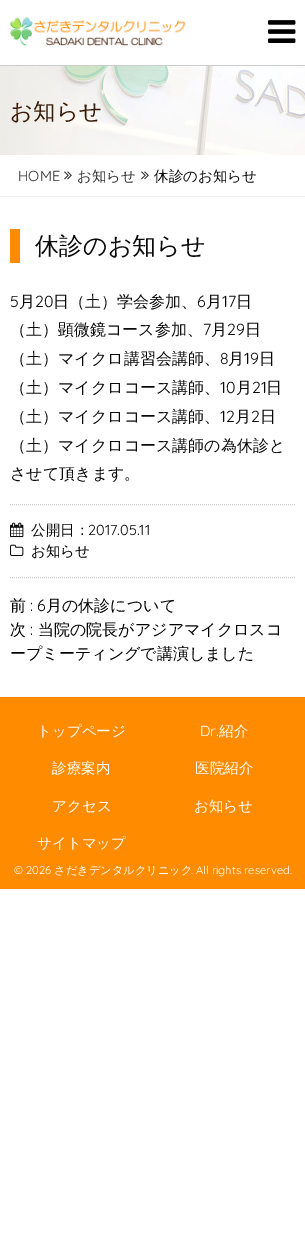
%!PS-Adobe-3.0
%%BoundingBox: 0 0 305 1250
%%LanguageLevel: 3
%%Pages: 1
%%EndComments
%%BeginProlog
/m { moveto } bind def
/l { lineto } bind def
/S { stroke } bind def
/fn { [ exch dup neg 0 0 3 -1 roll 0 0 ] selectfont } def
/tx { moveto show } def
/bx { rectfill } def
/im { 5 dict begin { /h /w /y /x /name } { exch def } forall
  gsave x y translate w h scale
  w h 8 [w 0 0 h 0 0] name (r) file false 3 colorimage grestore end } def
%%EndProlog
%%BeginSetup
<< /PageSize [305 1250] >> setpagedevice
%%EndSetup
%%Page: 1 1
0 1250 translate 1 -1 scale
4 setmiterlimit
1 setgray
0 0 305 1250 bx
0.8 setgray
0 65 305 1 bx
(image0.raw) 10 17 176 29 im
(image1.raw) 268 20 28 23 im
(image2.raw) 0 66 305 89 im
/WenQuanYiZenHei-Medium 22.5 fn
0.224 0.102 0.02 setrgbcolor
(お知らせ) 10 119 tx
0.937 setgray
0 196 305 1 bx
/Quicksand-Regular 14.5 fn
0.2 setgray
(HOME) 18 181 tx
(image3.raw) 64 171 8 9 im
/WenQuanYiZenHei-Medium 14.5 fn
(お知らせ) 77 181 tx
(image3.raw) 141 171 8 9 im
0.039 setgray
(休診のお知らせ) 154 181 tx
1 0.549 0 setrgbcolor
10 229 10 34 bx
/WenQuanYiZenHei-Medium 24 fn
0.039 setgray
(休診のお知らせ) 35 254 tx
/Quicksand-Regular 16 fn
(5) 10 307 tx
/WenQuanYiZenHei-Medium 16 fn
(月) 19 307 tx
/Quicksand-Regular 16 fn
(20) 35 307 tx
/WenQuanYiZenHei-Medium 16 fn
(日（土）学会参加、) 53 307 tx
/Quicksand-Regular 16 fn
(6) 197 307 tx
/WenQuanYiZenHei-Medium 16 fn
(月) 206 307 tx
/Quicksand-Regular 16 fn
(17) 222 307 tx
/WenQuanYiZenHei-Medium 16 fn
(日) 236 307 tx
(（土）顕微鏡コース参加、) 10 335 tx
/Quicksand-Regular 16 fn
(7) 203 335 tx
/WenQuanYiZenHei-Medium 16 fn
(月) 211 335 tx
/Quicksand-Regular 16 fn
(29) 227 335 tx
/WenQuanYiZenHei-Medium 16 fn
(日) 245 335 tx
(（土）マイクロ講習会講師、) 10 364 tx
/Quicksand-Regular 16 fn
(8) 220 364 tx
/WenQuanYiZenHei-Medium 16 fn
(月) 228 364 tx
/Quicksand-Regular 16 fn
(19) 244 364 tx
/WenQuanYiZenHei-Medium 16 fn
(日) 259 364 tx
(（土）マイクロコース講師、) 10 393 tx
/Quicksand-Regular 16 fn
(10) 220 393 tx
/WenQuanYiZenHei-Medium 16 fn
(月) 236 393 tx
/Quicksand-Regular 16 fn
(21) 252 393 tx
/WenQuanYiZenHei-Medium 16 fn
(日) 266 393 tx
(（土）マイクロコース講師、) 10 422 tx
/Quicksand-Regular 16 fn
(12) 220 422 tx
/WenQuanYiZenHei-Medium 16 fn
(月) 235 422 tx
/Quicksand-Regular 16 fn
(2) 251 422 tx
/WenQuanYiZenHei-Medium 16 fn
(日) 260 422 tx
(（土）マイクロコース講師の為休診と) 10 451 tx
(させて頂きます。) 10 479 tx
0.8 setgray
[1 1] 0 setdash
10 504.5 m 295 504.5 l S
10 577.5 m 295 577.5 l S
(image4.raw) 10 522 14 16 im
/WenQuanYiZenHei-Medium 14.5 fn
0.039 setgray
(公開日：) 31 535 tx
/Quicksand-Regular 14.5 fn
(2017.05.11) 88 535 tx
(image5.raw) 10 544 14 12 im
/WenQuanYiZenHei-Medium 14.5 fn
0 setgray
(お知らせ) 31 556 tx
/WenQuanYiZenHei-Medium 16 fn
(前) 10 611 tx
/Quicksand-Regular 16 fn
(: 6) 30 611 tx
/WenQuanYiZenHei-Medium 16 fn
(月の休診について) 46 611 tx
(次) 10 635 tx
/Quicksand-Regular 16 fn
(:) 30 635 tx
/WenQuanYiZenHei-Medium 16 fn
(当院の院長がアジアマイクロスコ) 38 635 tx
(ープミーティングで講演しました) 10 659 tx
1 0.549 0 setrgbcolor
0 697 305 192 bx
/WenQuanYiZenHei-Medium 14.5 fn
1 setgray
(トップページ) 37 736 tx
/Quicksand-Regular 14.5 fn
(Dr.) 200 736 tx
/WenQuanYiZenHei-Medium 14.5 fn
(紹介) 219 736 tx
(診療案内) 52 773 tx
(医院紹介) 195 773 tx
(アクセス) 52 811 tx
(お知らせ) 194 811 tx
(サイトマップ) 37 848 tx
/Quicksand-Regular 11.25 fn
(© 2026) 14 874 tx
/WenQuanYiZenHei-Medium 11.25 fn
(さだきデンタルクリニック) 54 874 tx
/Quicksand-Regular 11.25 fn
(. All rights reserved.) 191 874 tx
showpage
%%EOF
